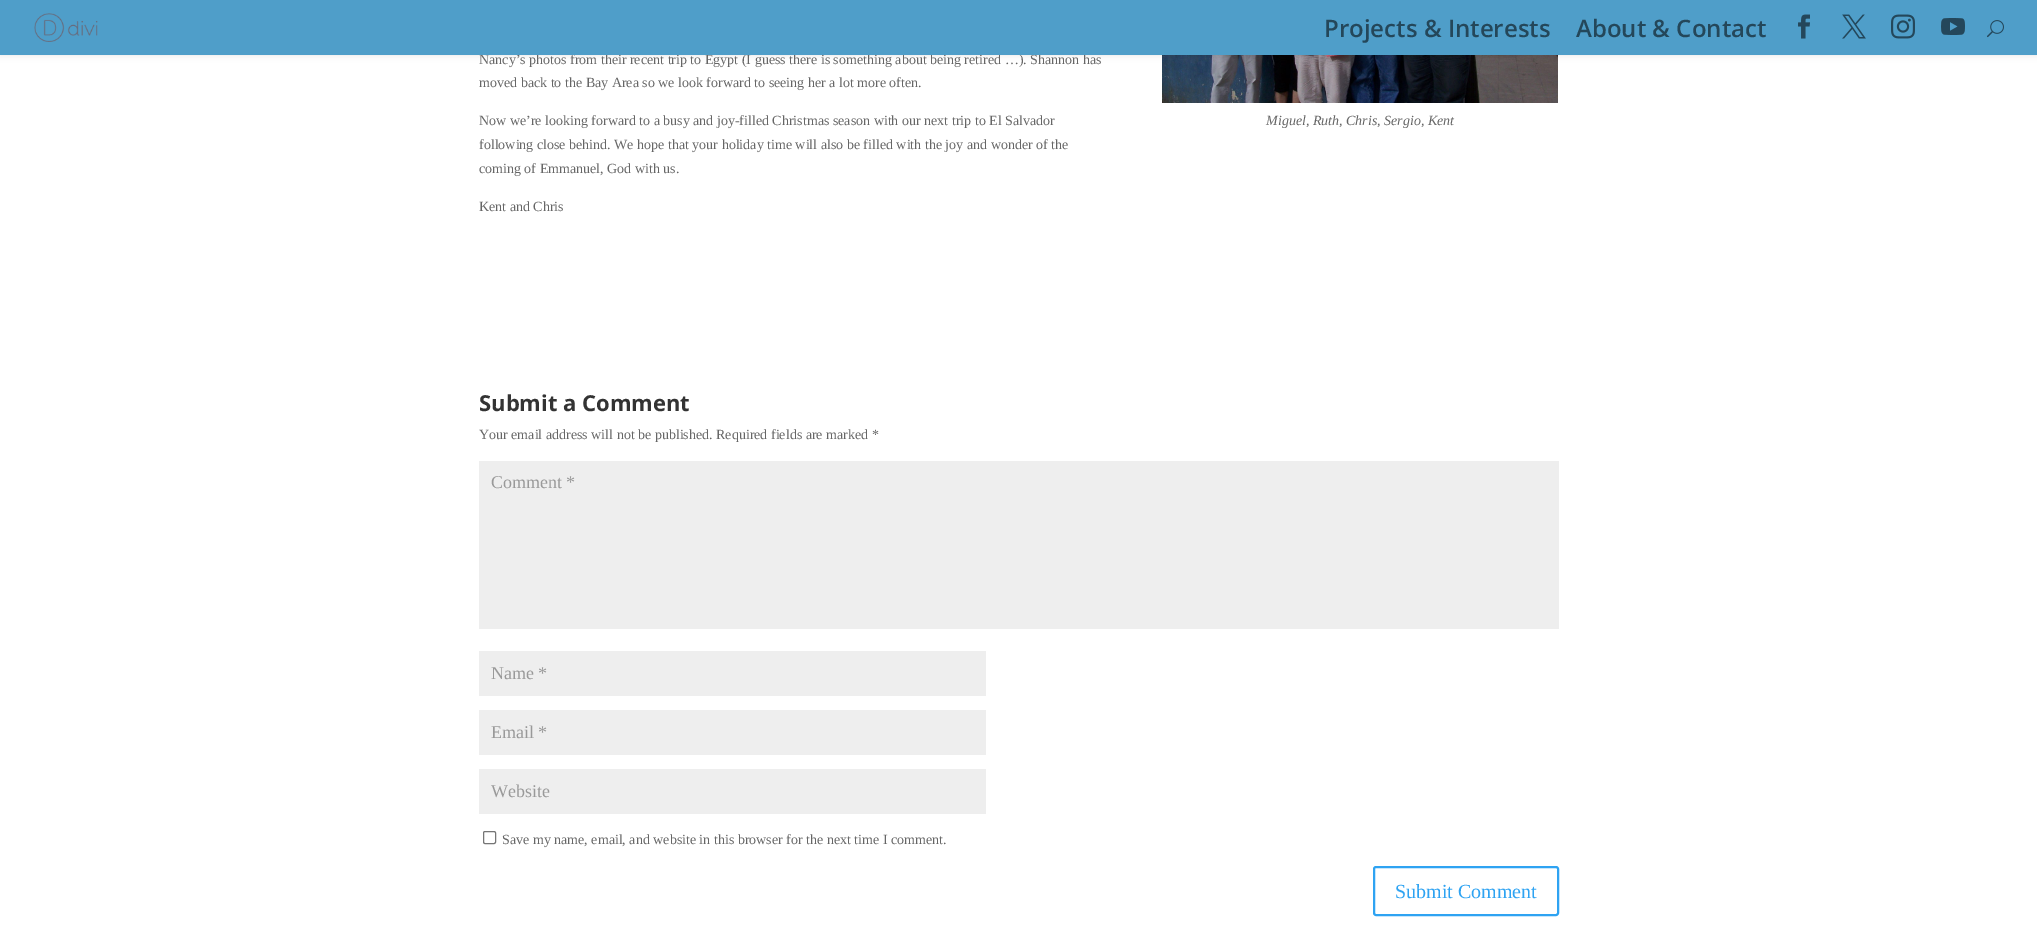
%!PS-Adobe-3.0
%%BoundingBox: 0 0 2037 947
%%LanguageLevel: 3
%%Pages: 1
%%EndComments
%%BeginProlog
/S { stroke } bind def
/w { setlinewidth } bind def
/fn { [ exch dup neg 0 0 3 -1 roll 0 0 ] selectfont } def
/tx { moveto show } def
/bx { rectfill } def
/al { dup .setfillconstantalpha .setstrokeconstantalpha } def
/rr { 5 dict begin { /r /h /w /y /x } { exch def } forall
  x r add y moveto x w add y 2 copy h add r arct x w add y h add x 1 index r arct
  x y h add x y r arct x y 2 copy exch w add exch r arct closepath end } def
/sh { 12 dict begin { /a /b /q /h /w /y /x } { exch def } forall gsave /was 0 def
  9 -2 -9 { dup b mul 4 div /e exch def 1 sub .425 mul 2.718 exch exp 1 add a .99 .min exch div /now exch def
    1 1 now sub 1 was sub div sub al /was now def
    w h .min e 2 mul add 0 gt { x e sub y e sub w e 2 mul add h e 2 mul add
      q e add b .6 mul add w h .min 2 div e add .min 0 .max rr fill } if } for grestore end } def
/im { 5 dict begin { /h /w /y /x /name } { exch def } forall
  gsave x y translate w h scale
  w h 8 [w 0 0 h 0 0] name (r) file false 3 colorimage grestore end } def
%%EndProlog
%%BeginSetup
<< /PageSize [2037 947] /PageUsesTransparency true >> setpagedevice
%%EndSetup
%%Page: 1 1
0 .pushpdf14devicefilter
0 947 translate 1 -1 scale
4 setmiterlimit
1 setgray
0 0 2037 947 bx
(image6.raw) 1162 55 396 48 im
0 setgray
0 0 2037 55 0 3.5 0.1 sh
/LiberationSerif-Regular 14 fn
0.4 setgray
(Nancy’s photos from their recent trip to Egypt \(I guess there is something about being retired …\). Shannon has) 479 64 tx
0.31 0.62 0.788 setrgbcolor
0 0 2037 55 bx
(image0.raw) 34 13 64 29 im
/OpenSans-SemiBold 24 fn
0.141 0.278 0.353 setrgbcolor
(Projects & Interests) 1324 37 tx
(About & Contact) 1576 37 tx
(image1.raw) 1798 14 12 25 im
(image2.raw) 1842 14 24 25 im
(image3.raw) 1891 14 24 25 im
(image4.raw) 1941 18 24 17 im
(image5.raw) 1987 20 17 18 im
/LiberationSerif-Regular 14 fn
0.4 setgray
(moved back to the Bay Area so we look forward to seeing her a lot more often.) 479 87 tx
(Now we’re looking forward to a busy and joy-filled Christmas season with our next trip to El Salvador) 479 125 tx
(following close behind. We hope that your holiday time will also be filled with the joy and wonder of the) 479 149 tx
(coming of Emmanuel, God with us.) 479 173 tx
(Kent and Chris) 479 211 tx
/LiberationSerif-Italic 14 fn
(Miguel, Ruth, Chris, Sergio, Kent) 1266 125 tx
/OpenSans-Bold 22 fn
0.2 setgray
(Submit a Comment) 479 411 tx
/LiberationSerif-Regular 14 fn
0.4 setgray
(Your email address will not be published. Required fields are marked *) 479 439 tx
0.933 setgray
479 461 1080 168 bx
/LiberationSerif-Regular 18 fn
0.6 setgray
(Comment *) 491 488 tx
0.933 setgray
479 651 507 45 bx
0.6 setgray
(Name *) 491 679 tx
0.933 setgray
479 710 507 45 bx
0.6 setgray
(Email *) 491 738 tx
0.933 setgray
479 769 507 45 bx
0.6 setgray
(Website) 491 797 tx
0.463 setgray
483.5 831.5 12 12 1.5 rr S
/LiberationSerif-Regular 14 fn
0.4 setgray
(Save my name, email, and website in this browser for the next time I comment.) 502 844 tx
0.18 0.639 0.949 setrgbcolor
2 w
1374 867 184 48 2 rr S
/LiberationSerif-Regular 20 fn
(Submit Comment) 1395 898 tx
.poppdf14devicefilter showpage
%%EOF
